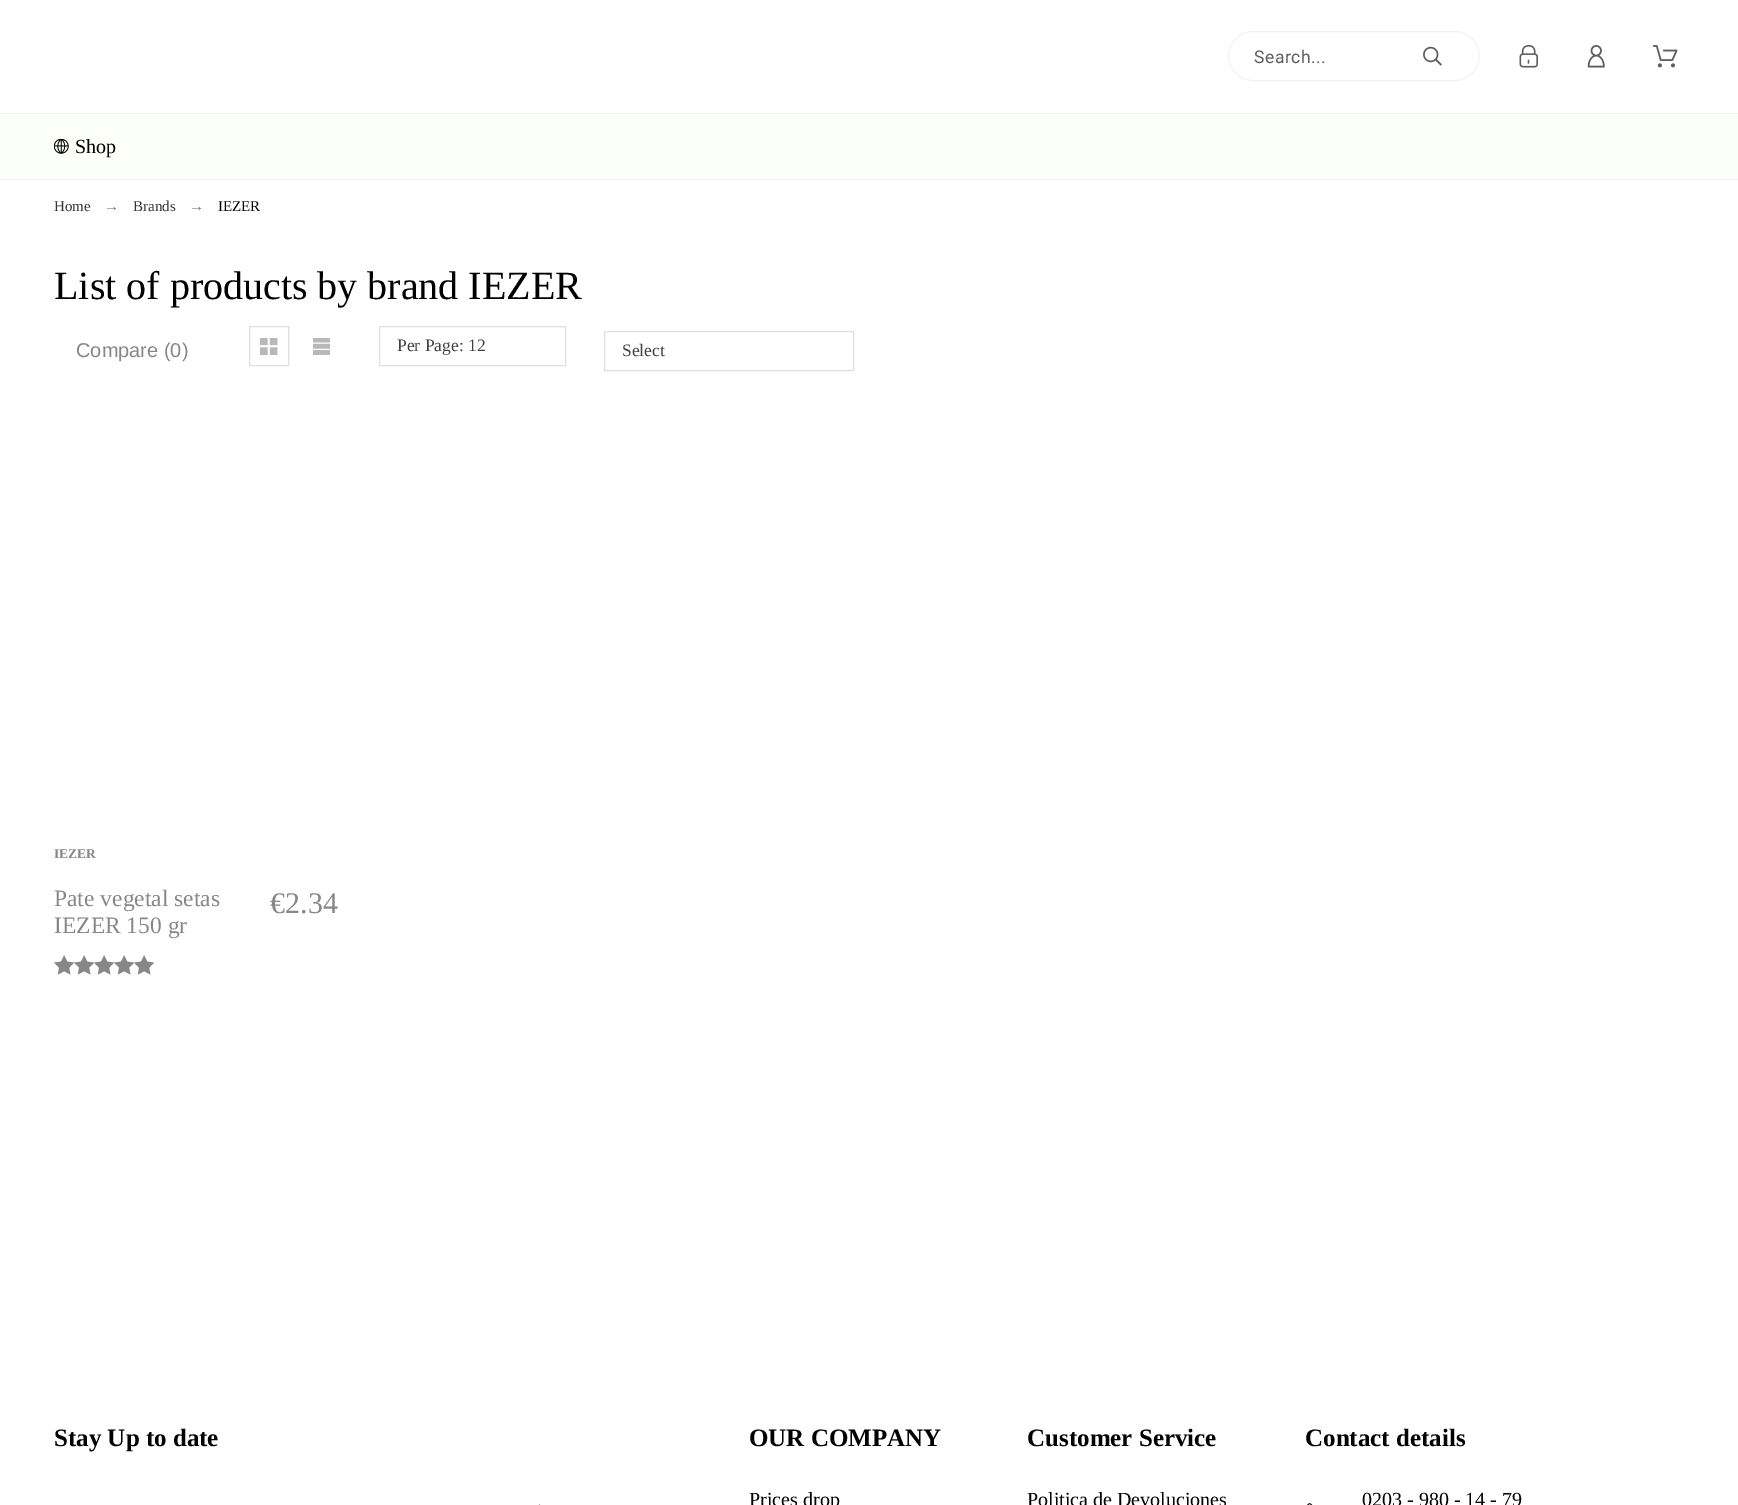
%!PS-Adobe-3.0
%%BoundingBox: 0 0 1738 1505
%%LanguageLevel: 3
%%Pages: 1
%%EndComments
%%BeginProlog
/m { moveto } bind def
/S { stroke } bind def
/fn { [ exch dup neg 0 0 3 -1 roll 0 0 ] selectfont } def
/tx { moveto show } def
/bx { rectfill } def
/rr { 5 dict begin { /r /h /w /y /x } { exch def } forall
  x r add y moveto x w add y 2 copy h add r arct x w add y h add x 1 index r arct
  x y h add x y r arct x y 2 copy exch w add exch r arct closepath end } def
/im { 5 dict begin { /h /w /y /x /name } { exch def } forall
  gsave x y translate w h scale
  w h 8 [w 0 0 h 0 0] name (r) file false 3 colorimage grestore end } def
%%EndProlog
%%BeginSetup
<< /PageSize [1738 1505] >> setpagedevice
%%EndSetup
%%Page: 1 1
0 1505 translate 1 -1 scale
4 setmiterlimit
1 setgray
0 0 1738 1505 bx
0.933 setgray
0 113 1738 1 bx
0.949 setgray
1228.5 31.5 251 49 24.5 rr S
/Roboto-Regular 17.5 fn
0.369 setgray
1254 63 m 0.5 0 (Search...) ashow
(image0.raw) 1423 46 19 20 im
(image1.raw) 1519 45 19 23 im
(image2.raw) 1587 45 18 23 im
(image3.raw) 1653 45 25 23 im
0.992 1 0.976 setrgbcolor
0 114 1738 65 bx
0.933 setgray
0 179 1738 1 bx
(image4.raw) 54 139 15 15 im
/LiberationSerif-Regular 20 fn
0 setgray
(Shop) 75 153 tx
/LiberationSerif-Regular 15 fn
0.2 setgray
(Home) 54 211 tx
0.4 setgray
(→) 104 211 tx
0.2 setgray
(Brands) 133 211 tx
0.4 setgray
(→) 189 211 tx
0 setgray
(IEZER) 218 211 tx
/LiberationSerif-Regular 40 fn
(List of products by brand IEZER) 54 299 tx
/LiberationSans-Regular 20 fn
0.529 setgray
(Compare \(0\)) 76 357 tx
0.875 setgray
249.5 326.5 39 39 rectstroke
(image5.raw) 260 338 18 17 im
(image6.raw) 313 338 17 17 im
379.5 326.5 186 39 rectstroke
/LiberationSerif-Regular 17.5 fn
0.255 setgray
(Per Page: 12) 397 351 tx
0.875 setgray
604.5 331.5 249 39 rectstroke
0.255 setgray
(Select) 622 356 tx
/LiberationSerif-Bold 13.5 fn
0.529 setgray
(IEZER) 54 858 tx
/LiberationSerif-Regular 23.5 fn
(Pate vegetal setas) 54 906 tx
(IEZER 150 gr) 54 933 tx
/LiberationSerif-Regular 30 fn
(€2.34) 270 913 tx
(image7.raw) 54 955 20 20 im
(image7.raw) 74 955 20 20 im
(image7.raw) 94 955 20 20 im
(image7.raw) 114 955 20 20 im
(image7.raw) 134 955 20 20 im
/LiberationSerif-Bold 25 fn
0 setgray
(Stay Up to date) 54 1446 tx
(image8.raw) 538 1504 3 1 im
(OUR COMPANY) 749 1446 tx
/LiberationSerif-Regular 20 fn
(Prices drop) 749 1506 tx
/LiberationSerif-Bold 25 fn
(Customer Service) 1027 1446 tx
/LiberationSerif-Regular 20 fn
(Politica de Devoluciones) 1027 1506 tx
/LiberationSerif-Bold 25 fn
(Contact details) 1305 1446 tx
(image9.raw) 1307 1503 6 2 im
/LiberationSerif-Regular 20 fn
(0203 - 980 - 14 - 79) 1362 1506 tx
showpage
%%EOF
